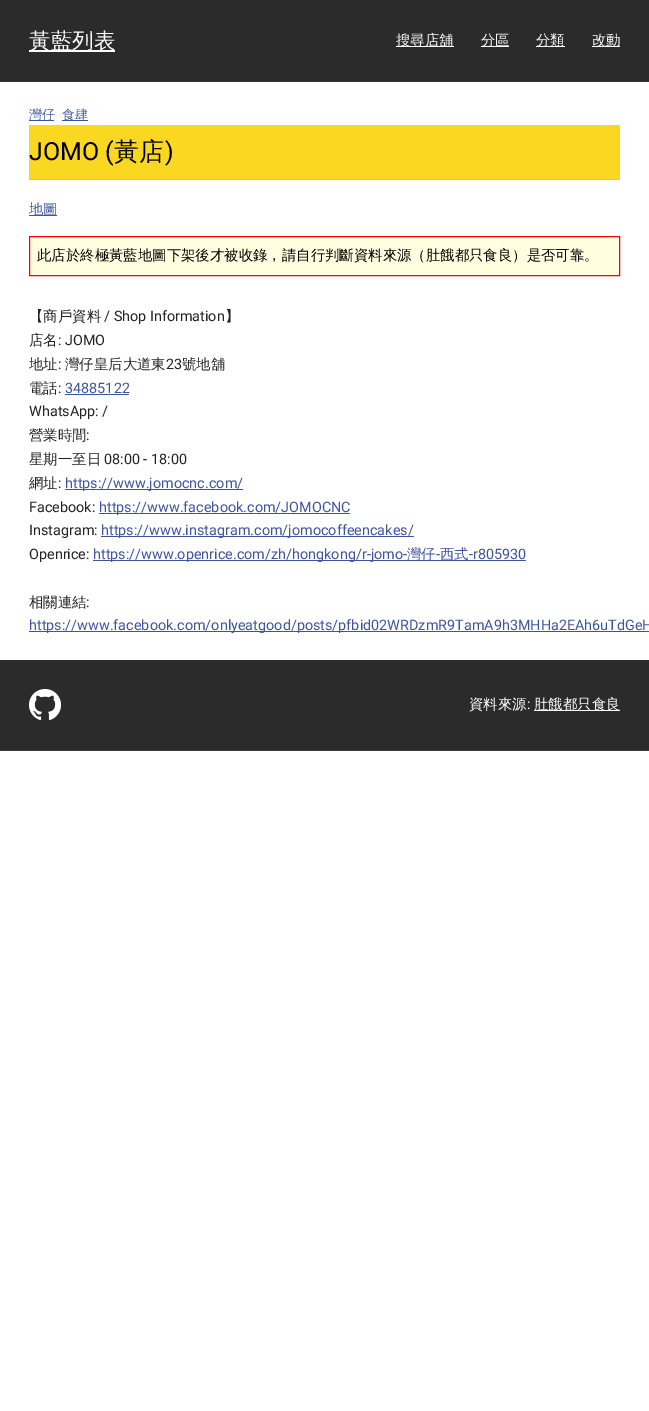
%!PS-Adobe-3.0
%%BoundingBox: 0 0 649 1411
%%LanguageLevel: 3
%%Pages: 1
%%EndComments
%%BeginProlog
/m { moveto } bind def
/l { lineto } bind def
/h { closepath } bind def
/f { fill } bind def
/S { stroke } bind def
/q { gsave } bind def
/Q { grestore } bind def
/fn { [ exch dup neg 0 0 3 -1 roll 0 0 ] selectfont } def
/tx { moveto show } def
/bx { rectfill } def
/im { 5 dict begin { /h /w /y /x /name } { exch def } forall
  gsave x y translate w h scale
  w h 8 [w 0 0 h 0 0] name (r) file false 3 colorimage grestore end } def
%%EndProlog
%%BeginSetup
<< /PageSize [649 1411] >> setpagedevice
%%EndSetup
%%Page: 1 1
0 1411 translate 1 -1 scale
4 setmiterlimit
1 setgray
0 0 649 1411 bx
0.169 setgray
0 0 649 81 bx
0.224 setgray
0 81 649 1 bx
1 setgray
29 50 86 2 bx
/WenQuanYiZenHei-Medium 21.5 fn
(黃藍列表) 29 48 tx
396 46 58 1 bx
/WenQuanYiZenHei-Medium 14.4 fn
(搜尋店舖) 396 45 tx
481 46 28 1 bx
(分區) 481 45 tx
536 46 29 1 bx
(分類) 536 45 tx
592 46 28 1 bx
(改動) 592 45 tx
0.247 0.329 0.62 setrgbcolor
29 120 25 1 bx
/WenQuanYiZenHei-Medium 13 fn
(灣仔) 29 119 tx
62 120 26 1 bx
(食肆) 62 119 tx
0.98 0.847 0.129 setrgbcolor
29 125 591 54 bx
0.898 0.792 0.224 setrgbcolor
29 179 591 1 bx
/Roboto-Regular 25 fn
0 setgray
(JOMO \() 29 160 tx
/WenQuanYiZenHei-Medium 25 fn
(黃店) 114 160 tx
/Roboto-Regular 25 fn
(\)) 165 160 tx
0.247 0.329 0.62 setrgbcolor
29 215 28 1 bx
/WenQuanYiZenHei-Medium 14.4 fn
(地圖) 29 214 tx
1 1 0.878 setrgbcolor
29.5 236.5 m 619.5 236.5 l 619.5 275.5 l 29.5 275.5 l h q f Q
1 0 0 setrgbcolor
S
0 setgray
(此店於終極黃藍地圖下架後才被收錄，請自行判斷資料來源（肚餓都只食良）是否可靠。) 37 260 tx
0.133 setgray
(【商戶資料) 29 321 tx
/Roboto-Regular 14.4 fn
(/ Shop Information) 104 321 tx
/WenQuanYiZenHei-Medium 14.4 fn
(】) 225 321 tx
(店名) 29 345 tx
/Roboto-Regular 14.4 fn
(: JOMO) 58 345 tx
/WenQuanYiZenHei-Medium 14.4 fn
(地址) 29 369 tx
/Roboto-Regular 14.4 fn
(:) 58 369 tx
/WenQuanYiZenHei-Medium 14.4 fn
(灣仔皇后大道東) 65 369 tx
/Roboto-Regular 14.4 fn
(23) 166 369 tx
/WenQuanYiZenHei-Medium 14.4 fn
(號地舖) 182 369 tx
(電話) 29 393 tx
/Roboto-Regular 14.4 fn
(:) 58 393 tx
0.247 0.329 0.62 setrgbcolor
(34885122) 65 393 tx
65 394 64 1 bx
0.133 setgray
(WhatsApp: /) 29 416 tx
/WenQuanYiZenHei-Medium 14.4 fn
(營業時間) 29 440 tx
/Roboto-Regular 14.4 fn
(:) 86 440 tx
/WenQuanYiZenHei-Medium 14.4 fn
(星期一至日) 29 464 tx
/Roboto-Regular 14.4 fn
(08:00 - 18:00) 104 464 tx
/WenQuanYiZenHei-Medium 14.4 fn
(網址) 29 488 tx
/Roboto-Regular 14.4 fn
(:) 58 488 tx
0.247 0.329 0.62 setrgbcolor
65 489 178 1 bx
(https://www.jomocnc.com/) 65 488 tx
0.133 setgray
(Facebook:) 29 512 tx
0.247 0.329 0.62 setrgbcolor
99 513 251 1 bx
(https://www.facebook.com/JOMOCNC) 99 512 tx
0.133 setgray
(Instagram:) 29 535 tx
0.247 0.329 0.62 setrgbcolor
101 536 313 1 bx
(https://www.instagram.com/jomocoffeencakes/) 101 535 tx
0.133 setgray
(Openrice:) 29 559 tx
0.247 0.329 0.62 setrgbcolor
93 560 433 1 bx
(https://www.openrice.com/zh/hongkong/r-jomo-) 93 559 tx
/WenQuanYiZenHei-Medium 14.4 fn
(灣仔) 407 559 tx
/Roboto-Regular 14.4 fn
(-) 436 559 tx
/WenQuanYiZenHei-Medium 14.4 fn
(西式) 440 559 tx
/Roboto-Regular 14.4 fn
(-r805930) 469 559 tx
/WenQuanYiZenHei-Medium 14.4 fn
0.133 setgray
(相關連結) 29 607 tx
/Roboto-Regular 14.4 fn
(:) 86 607 tx
0.247 0.329 0.62 setrgbcolor
29 631 620 1 bx
(https://www.facebook.com/onlyeatgood/posts/pfbid02WRDzmR9TamA9h3MHHa2EAh6uTdGeH) 29 630 tx
0.169 setgray
0 660 649 90 bx
0.224 setgray
0 750 649 1 bx
(image0.raw) 29 689 32 31 im
/WenQuanYiZenHei-Medium 14.4 fn
1 setgray
(資料來源) 469 709 tx
/Roboto-Regular 14.4 fn
(:) 527 709 tx
534 710 86 1 bx
/WenQuanYiZenHei-Medium 14.4 fn
(肚餓都只食良) 534 709 tx
showpage
%%EOF
